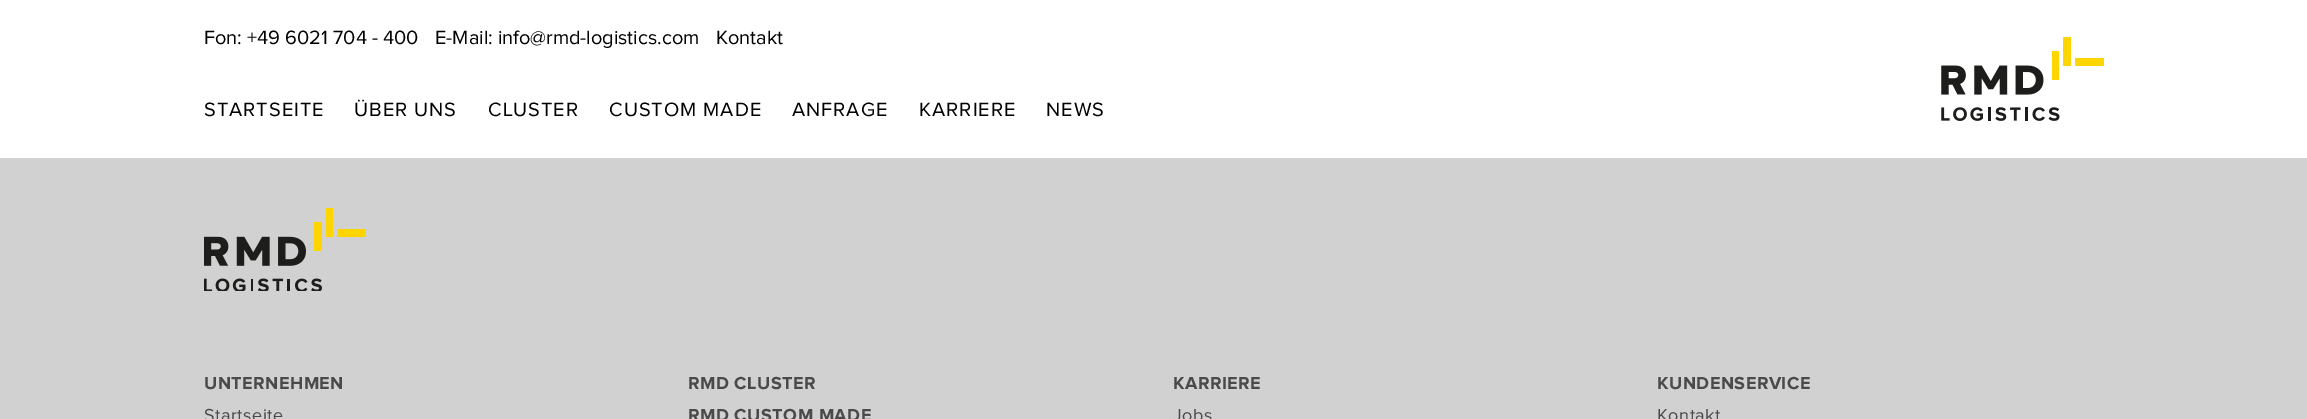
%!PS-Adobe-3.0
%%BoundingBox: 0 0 2307 419
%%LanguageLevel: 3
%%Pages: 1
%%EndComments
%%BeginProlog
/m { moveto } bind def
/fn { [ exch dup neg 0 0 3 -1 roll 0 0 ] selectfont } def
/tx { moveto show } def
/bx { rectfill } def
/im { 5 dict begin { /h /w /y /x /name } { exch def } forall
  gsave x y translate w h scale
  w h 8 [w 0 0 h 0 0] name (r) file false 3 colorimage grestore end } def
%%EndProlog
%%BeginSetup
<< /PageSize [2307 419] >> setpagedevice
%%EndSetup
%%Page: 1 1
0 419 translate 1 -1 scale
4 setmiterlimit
1 setgray
0 0 2307 419 bx
/ProximaNova-Regular 20 fn
0 setgray
(Fon: +49 6021 704 - 400) 204 44 tx
(E-Mail: info@rmd-logistics.com) 435 44 tx
(Kontakt) 716 44 tx
204 116 m 1 0 (STARTSEITE) ashow
354 116 m 1 0 (ÜBER UNS) ashow
488 116 m 1 0 (CLUSTER) ashow
609 116 m 1 0 (CUSTOM MADE) ashow
792 116 m 1 0 (ANFRAGE) ashow
919 116 m 1 0 (KARRIERE) ashow
1046 116 m 1 0 (NEWS) ashow
(image0.raw) 1941 37 163 84 im
0.82 setgray
0 158 2307 261 bx
(image1.raw) 204 208 162 83 im
/ProximaNova-Bold 18 fn
0.29 setgray
204 389 m 0.5 0 (UNTERNEHMEN) ashow
/ProximaNova-Regular 18 fn
204 421 m 0.5 0 (Startseite) ashow
/ProximaNova-Bold 18 fn
688 389 m 0.5 0 (RMD CLUSTER) ashow
688 421 m 0.5 0 (RMD CUSTOM MADE) ashow
1173 389 m 0.5 0 (KARRIERE) ashow
/ProximaNova-Regular 18 fn
1173 421 m 0.5 0 (Jobs) ashow
/ProximaNova-Bold 18 fn
1657 389 m 0.5 0 (KUNDENSERVICE) ashow
/ProximaNova-Regular 18 fn
1657 421 m 0.5 0 (Kontakt) ashow
showpage
%%EOF
